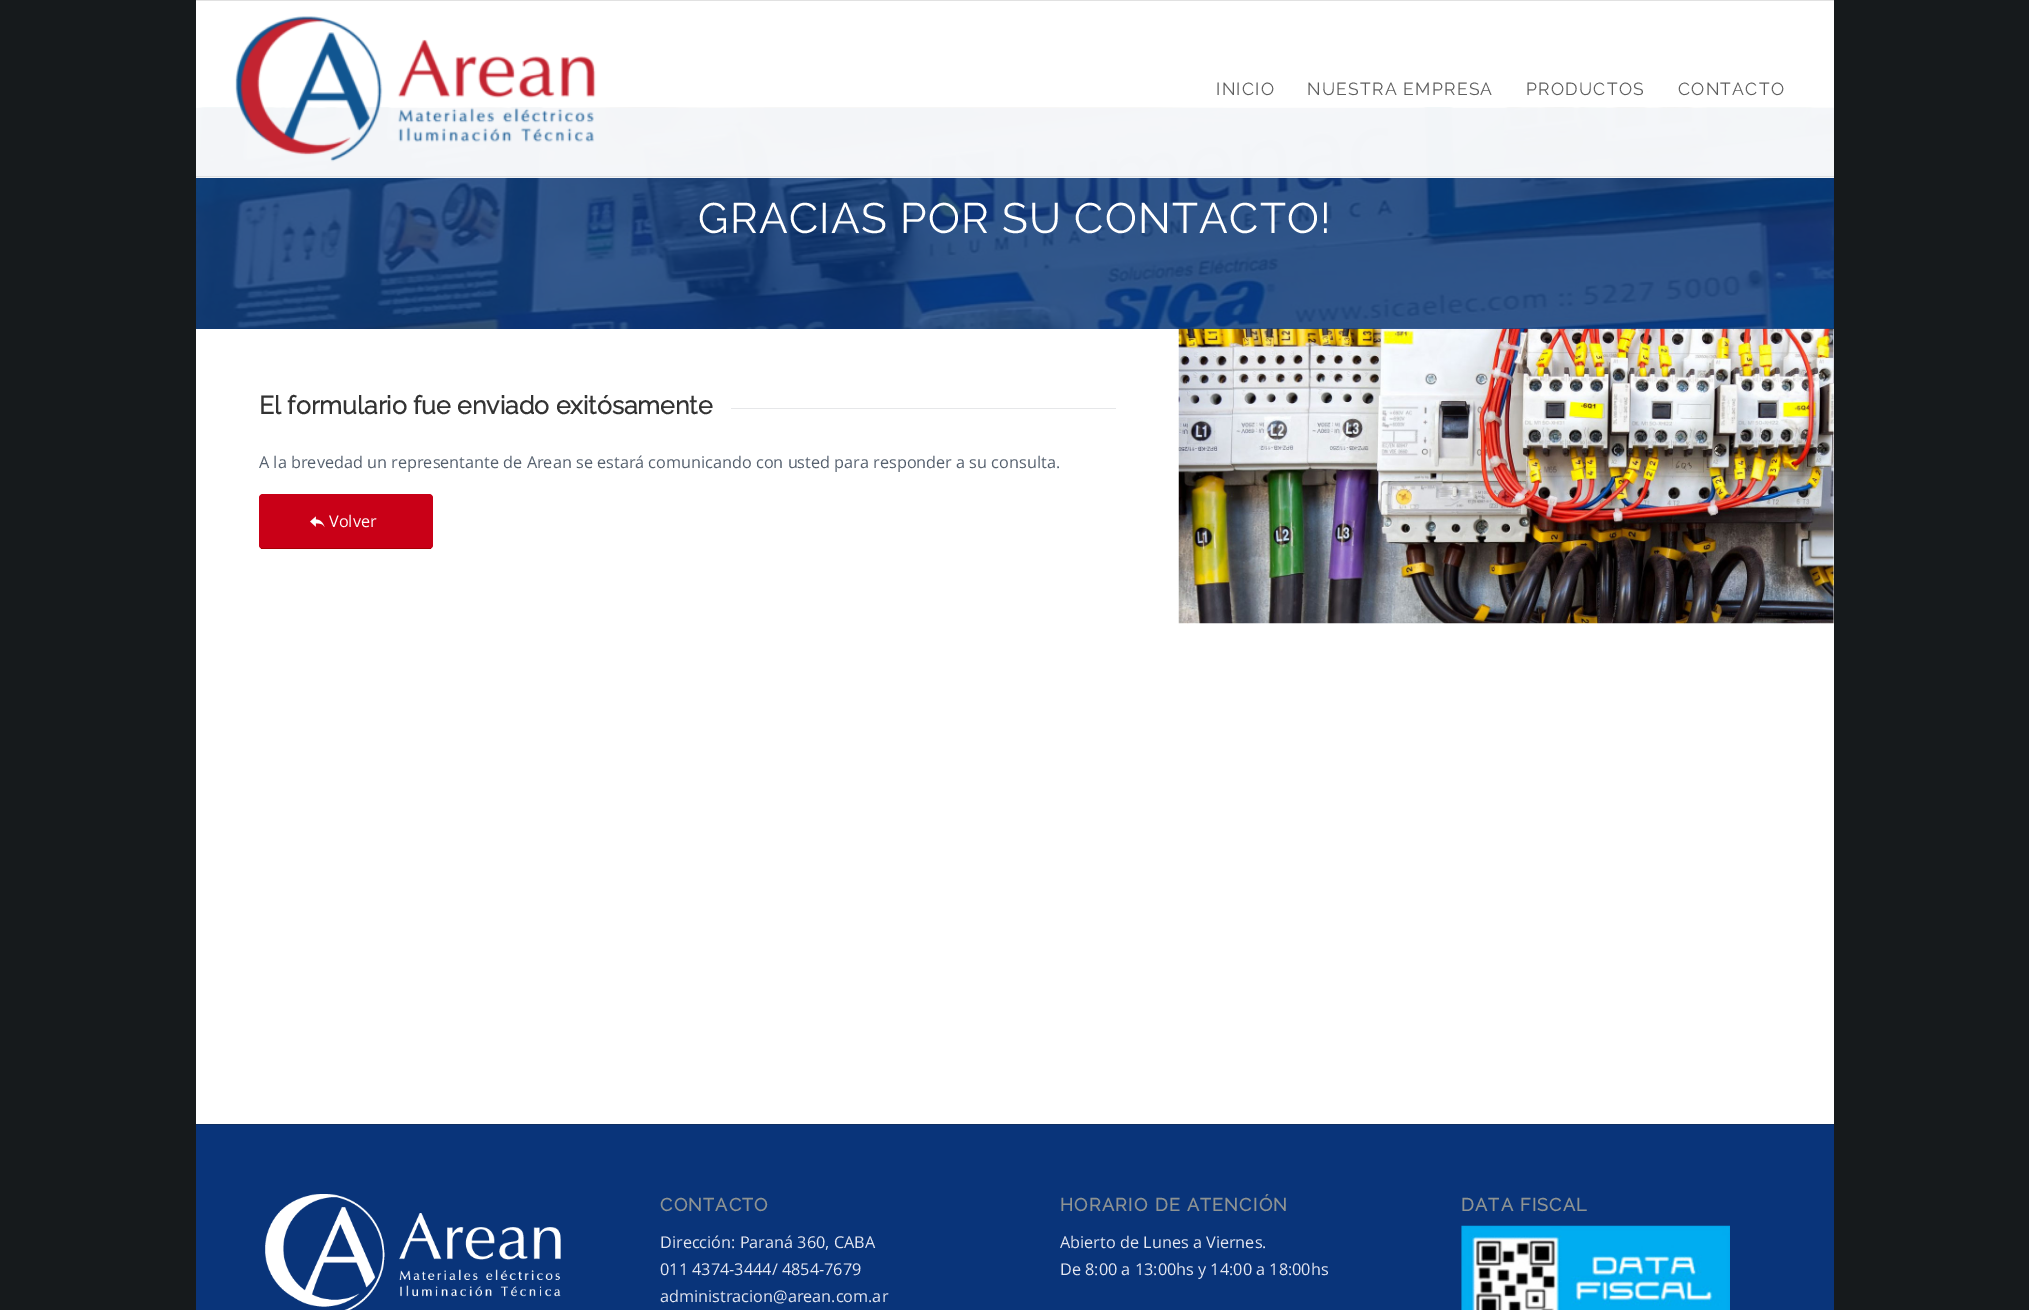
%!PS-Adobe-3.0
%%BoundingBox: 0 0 2029 1310
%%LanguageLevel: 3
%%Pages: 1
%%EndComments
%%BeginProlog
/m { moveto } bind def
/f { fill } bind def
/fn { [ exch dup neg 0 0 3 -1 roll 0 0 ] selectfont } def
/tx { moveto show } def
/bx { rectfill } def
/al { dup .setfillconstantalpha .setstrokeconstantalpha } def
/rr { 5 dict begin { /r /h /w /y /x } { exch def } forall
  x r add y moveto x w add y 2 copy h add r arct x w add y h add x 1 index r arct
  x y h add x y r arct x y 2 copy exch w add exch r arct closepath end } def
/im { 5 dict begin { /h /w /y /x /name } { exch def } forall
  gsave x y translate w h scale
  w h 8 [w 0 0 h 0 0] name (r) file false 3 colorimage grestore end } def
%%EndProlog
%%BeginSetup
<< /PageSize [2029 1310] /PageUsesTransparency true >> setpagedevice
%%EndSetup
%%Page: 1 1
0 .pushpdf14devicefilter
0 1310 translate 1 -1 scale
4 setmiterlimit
0.086 0.102 0.11 setrgbcolor
0 0 2029 1310 bx
0.882 setgray
196 0 1638 1 bx
1 setgray
196 1 1638 1123 bx
0.035 0.204 0.478 setrgbcolor
1833 108 1 221 bx
(image1.raw) 196 107 1638 222 im
(image3.raw) 1178 328 656 296 im
0.8 al
0.035 0.208 0.478 setrgbcolor
196 108 1638 221 bx
0.95 al
1 setgray
196 107 1638 71 bx
1 al
0.882 setgray
196 176 1638 1 bx
(image0.raw) 235 16 361 146 im
/Raleway-Thin 17.5 fn
0.369 setgray
1216 95 m 1.25 0 (INICIO) ashow
1307 95 m 1.25 0 (NUESTRA EMPRESA) ashow
1526 95 m 1.25 0 (PRODUCTOS) ashow
1678 95 m 1.25 0 (CONTACTO) ashow
/Raleway-Thin 42.5 fn
1 setgray
698 233 m 1.25 0 (GRACIAS POR SU CONTACTO!) ashow
/Raleway-Bold 25 fn
0.2 setgray
(El formulario fue enviado exitósamente) 259 414 tx
0.902 0.906 0.914 setrgbcolor
731 408 385 1 bx
/OpenSans-Regular 16.25 fn
0.333 0.376 0.431 setrgbcolor
(A la brevedad un representante de Arean se estará comunicando con usted para responder a su consulta.) 259 468 tx
0.788 0 0.09 setrgbcolor
259 494 174 55 4 rr f
0.655 0 0.02 setrgbcolor
261 548 170 1 bx
(image2.raw) 310 516 15 12 im
1 setgray
(Volver) 329 527 tx
0.035 0.204 0.478 setrgbcolor
196 1125 1638 185 bx
0.055 0.18 0.38 setrgbcolor
196 1124 1638 1 bx
(image4.raw) 265 1194 296 116 im
/Raleway-Bold 17.9 fn
0.557 0.576 0.573 setrgbcolor
660 1211 m 1.25 0 (CONTACTO) ashow
/OpenSans-Regular 16.25 fn
0.894 0.902 0.941 setrgbcolor
(Dirección: Paraná 360, CABA) 660 1248 tx
(011 4374-3444/ 4854-7679) 660 1275 tx
(administracion@arean.com.ar) 660 1302 tx
/Raleway-Bold 17.9 fn
0.557 0.576 0.573 setrgbcolor
1060 1211 m 1.25 0 (HORARIO DE ATENCIÓN) ashow
/OpenSans-Regular 16.25 fn
0.894 0.902 0.941 setrgbcolor
(Abierto de Lunes a Viernes.) 1060 1248 tx
(De 8:00 a 13:00hs y 14:00 a 18:00hs) 1060 1275 tx
/Raleway-Bold 17.9 fn
0.557 0.576 0.573 setrgbcolor
1461 1211 m 1.25 0 (DATA FISCAL) ashow
(image5.raw) 1461 1225 269 85 im
.poppdf14devicefilter showpage
%%EOF
